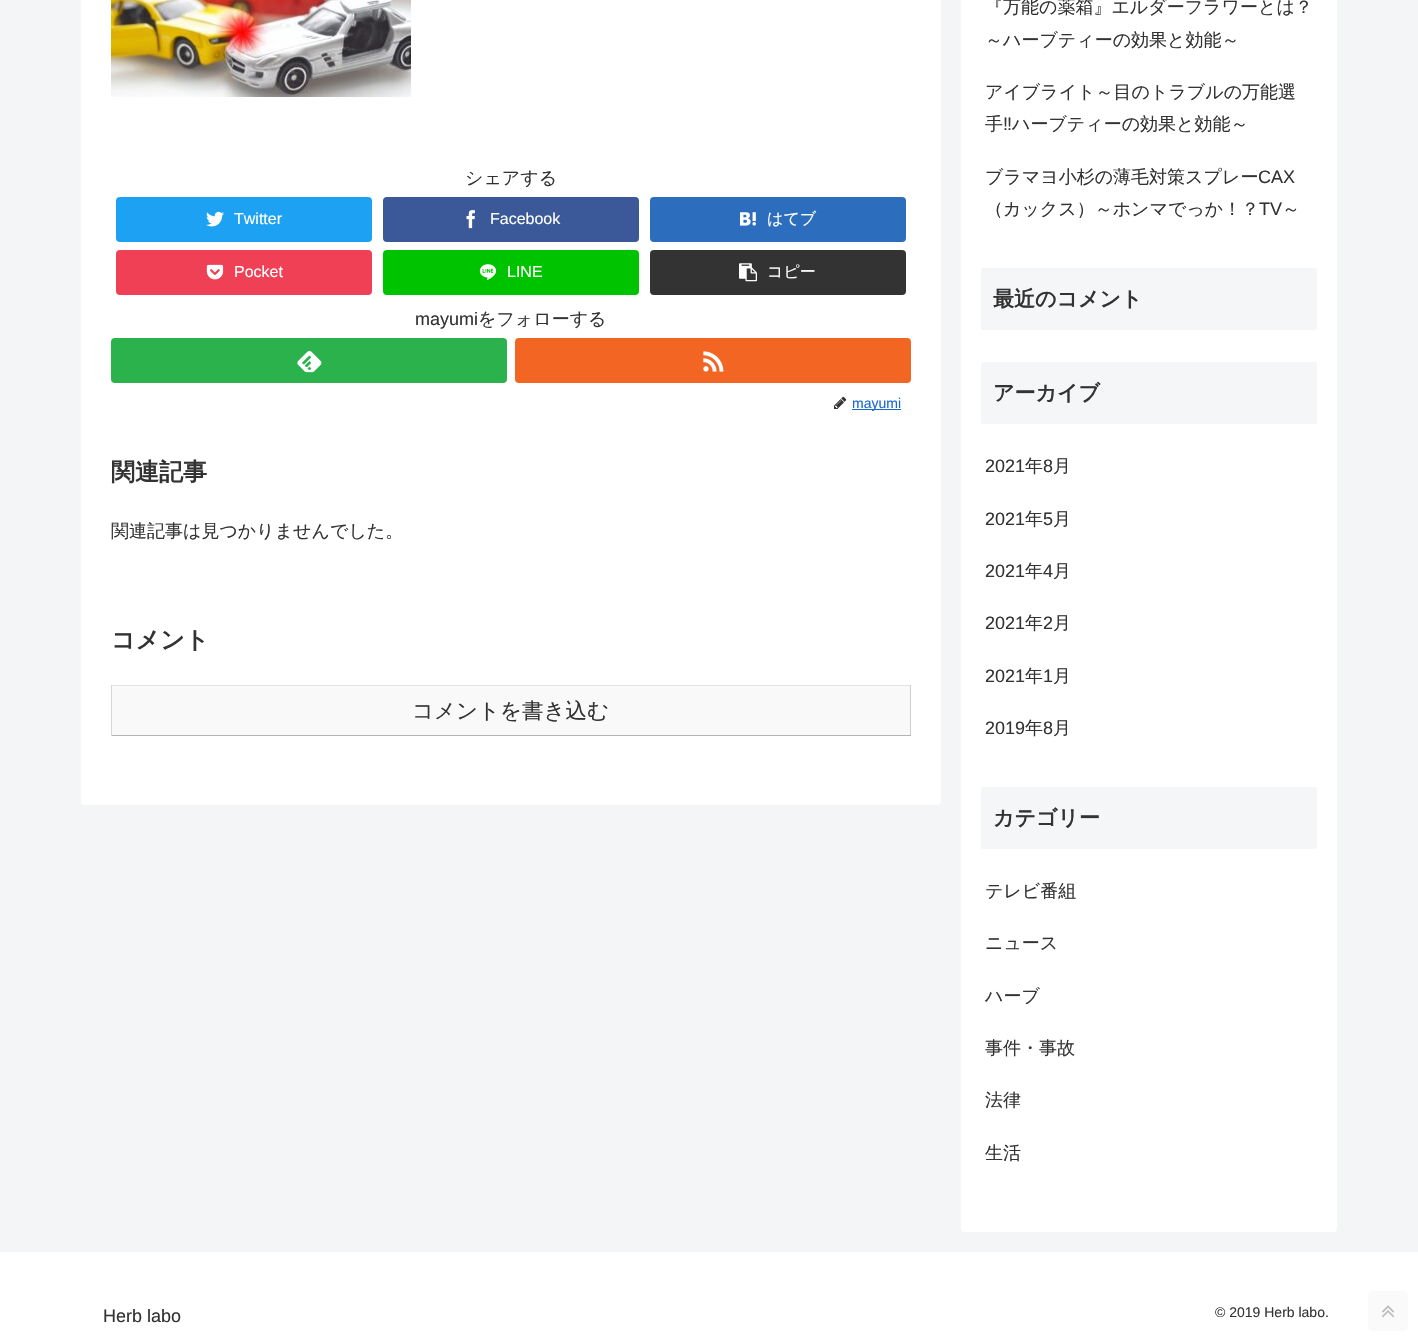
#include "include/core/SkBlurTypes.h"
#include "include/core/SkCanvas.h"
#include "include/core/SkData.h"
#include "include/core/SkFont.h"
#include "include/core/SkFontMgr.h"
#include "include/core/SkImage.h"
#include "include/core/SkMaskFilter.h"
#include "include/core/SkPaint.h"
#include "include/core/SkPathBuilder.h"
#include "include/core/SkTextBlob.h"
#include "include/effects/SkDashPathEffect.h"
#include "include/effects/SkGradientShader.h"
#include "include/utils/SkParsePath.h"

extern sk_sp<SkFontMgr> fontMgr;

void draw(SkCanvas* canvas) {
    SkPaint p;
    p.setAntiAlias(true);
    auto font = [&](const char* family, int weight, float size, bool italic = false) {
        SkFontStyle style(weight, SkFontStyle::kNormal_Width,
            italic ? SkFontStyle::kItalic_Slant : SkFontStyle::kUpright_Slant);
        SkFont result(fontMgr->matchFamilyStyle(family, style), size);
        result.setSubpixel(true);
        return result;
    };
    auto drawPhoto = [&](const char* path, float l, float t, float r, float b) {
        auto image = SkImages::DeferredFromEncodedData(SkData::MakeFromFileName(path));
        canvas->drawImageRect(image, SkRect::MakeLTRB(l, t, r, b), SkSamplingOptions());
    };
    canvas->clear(0xFFF4F5F7);
    p.setColor(0xFFFFFFFF);
    canvas->drawRoundRect(SkRect::MakeLTRB(81, -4, 941, 805), 4, 4, p);
    drawPhoto("media/1.png", 111, 0, 411, 97);
    auto font1 = font("WenQuanYi Zen Hei", 500, 18);
    p.setColor(0xFF333333);
    canvas->drawString("シェアする", 465, 184, font1, p);
    p.setColor(0xFF1DA1F2);
    canvas->drawRoundRect(SkRect::MakeLTRB(116, 197, 372, 242), 4, 4, p);
    drawPhoto("media/2.png", 206, 211, 224, 227);
    auto font2 = font("Liberation Sans", 400, 16);
    p.setColor(0xFFFFFFFF);
    canvas->drawString("Twitter", 234, 224, font2, p);
    p.setColor(0xFF3B5998);
    canvas->drawRoundRect(SkRect::MakeLTRB(383, 197, 639, 242), 4, 4, p);
    drawPhoto("media/3.png", 466, 210, 475, 229);
    p.setColor(0xFFFFFFFF);
    canvas->drawString("Facebook", 490, 224, font2, p);
    p.setColor(0xFF2C6EBD);
    canvas->drawRoundRect(SkRect::MakeLTRB(650, 197, 906, 242), 4, 4, p);
    drawPhoto("media/4.png", 740, 212, 756, 226);
    auto font3 = font("WenQuanYi Zen Hei", 500, 16);
    p.setColor(0xFFFFFFFF);
    canvas->drawString("はてブ", 767, 224, font3, p);
    p.setColor(0xFFEF4056);
    canvas->drawRoundRect(SkRect::MakeLTRB(116, 250, 372, 295), 4, 4, p);
    drawPhoto("media/5.png", 206, 264, 224, 280);
    p.setColor(0xFFFFFFFF);
    canvas->drawString("Pocket", 234, 277, font2, p);
    p.setColor(0xFF00C300);
    canvas->drawRoundRect(SkRect::MakeLTRB(383, 250, 639, 295), 4, 4, p);
    drawPhoto("media/6.png", 479, 264, 497, 280);
    p.setColor(0xFFFFFFFF);
    canvas->drawString("LINE", 507, 277, font2, p);
    p.setColor(0xFF333333);
    canvas->drawRoundRect(SkRect::MakeLTRB(650, 250, 906, 295), 4, 4, p);
    drawPhoto("media/7.png", 739, 263, 757, 282);
    p.setColor(0xFFFFFFFF);
    canvas->drawString("コピー", 767, 277, font3, p);
    auto font4 = font("Liberation Sans", 400, 18);
    p.setColor(0xFF333333);
    canvas->drawString("mayumi", 415, 325, font4, p);
    canvas->drawString("をフォローする", 478, 325, font1, p);
    p.setColor(0xFF2BB24C);
    canvas->drawRoundRect(SkRect::MakeLTRB(111, 338, 507, 383), 4, 4, p);
    drawPhoto("media/8.png", 297, 350, 322, 373);
    p.setColor(0xFFF26522);
    canvas->drawRoundRect(SkRect::MakeLTRB(515, 338, 911, 383), 4, 4, p);
    drawPhoto("media/9.png", 703, 351, 724, 372);
    drawPhoto("media/10.png", 834, 396, 847, 409);
    p.setColor(0xFF1967D2);
    canvas->drawRect(SkRect::MakeLTRB(852, 409, 901, 410), p);
    auto font5 = font("Liberation Sans", 400, 14);
    canvas->drawString("mayumi", 852, 408, font5, p);
    auto font6 = font("WenQuanYi Zen Hei", 700, 24);
    p.setColor(0xFF333333);
    canvas->drawString("関連記事", 111, 480, font6, p);
    canvas->drawString("関連記事は見つかりませんでした。", 111, 537, font1, p);
    canvas->drawString("コメント", 111, 648, font6, p);
    {
        const struct { float l, t, r, b; SkColor color; } items[] = {
            {112, 686, 910, 735, 0xFFF9F9F9},
            {111, 685, 911, 686, 0xFFE3E3E3},
            {910, 685, 911, 736, 0xFFCECECE},
            {111, 735, 911, 736, 0xFFB4B4B4},
            {111, 685, 112, 736, 0xFFD6D6D6},
        };
        for (auto [l, t, r, b, color] : items) {
            p.setColor(color);
            canvas->drawRect(SkRect::MakeLTRB(l, t, r, b), p);
        }
    }
    auto font7 = font("WenQuanYi Zen Hei", 500, 21.5f);
    p.setColor(0xFF333333);
    canvas->drawString("コメントを書き込む", 412, 718, font7, p);
    p.setColor(0xFFFFFFFF);
    canvas->drawRoundRect(SkRect::MakeLTRB(961, -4, 1337, 1232), 4, 4, p);
    p.setColor(0xFF333333);
    {
        const struct { const char* s; float x, y; } items[] = {
            {"『万能の薬箱』エルダーフラワーとは？", 985, 13},
            {"～ハーブティーの効果と効能～", 985, 46},
            {"アイブライト～目のトラブルの万能選", 985, 98},
            {"手", 985, 130},
        };
        for (auto [s, x, y] : items) {
            canvas->drawString(s, x, y, font1, p);
        }
    }
    canvas->drawString("‼", 1003, 130, font4, p);
    canvas->drawString("ハーブティーの効果と効能～", 1012, 130, font1, p);
    canvas->drawString("ブラマヨ小杉の薄毛対策スプレー", 985, 183, font1, p);
    canvas->drawString("CAX", 1258, 183, font4, p);
    canvas->drawString("（カックス）～ホンマでっか！？", 985, 215, font1, p);
    canvas->drawString("TV", 1259, 215, font4, p);
    canvas->drawString("～", 1282, 215, font1, p);
    p.setColor(0xFFF5F6F7);
    canvas->drawRoundRect(SkRect::MakeLTRB(981, 268, 1317, 330), 2, 2, p);
    auto font8 = font("WenQuanYi Zen Hei", 700, 21);
    p.setColor(0xFF333333);
    canvas->drawString("最近のコメント", 993, 306, font8, p);
    p.setColor(0xFFF5F6F7);
    canvas->drawRoundRect(SkRect::MakeLTRB(981, 362, 1317, 424), 2, 2, p);
    p.setColor(0xFF333333);
    canvas->drawString("アーカイブ", 993, 400, font8, p);
    canvas->drawString("2021", 985, 472, font4, p);
    canvas->drawString("年", 1025, 472, font1, p);
    canvas->drawString("8", 1043, 472, font4, p);
    canvas->drawString("月", 1053, 472, font1, p);
    canvas->drawString("2021", 985, 525, font4, p);
    canvas->drawString("年", 1025, 525, font1, p);
    canvas->drawString("5", 1043, 525, font4, p);
    canvas->drawString("月", 1053, 525, font1, p);
    canvas->drawString("2021", 985, 577, font4, p);
    canvas->drawString("年", 1025, 577, font1, p);
    canvas->drawString("4", 1043, 577, font4, p);
    canvas->drawString("月", 1053, 577, font1, p);
    canvas->drawString("2021", 985, 629, font4, p);
    canvas->drawString("年", 1025, 629, font1, p);
    canvas->drawString("2", 1043, 629, font4, p);
    canvas->drawString("月", 1053, 629, font1, p);
    canvas->drawString("2021", 985, 682, font4, p);
    canvas->drawString("年", 1025, 682, font1, p);
    canvas->drawString("1", 1043, 682, font4, p);
    canvas->drawString("月", 1053, 682, font1, p);
    canvas->drawString("2019", 985, 734, font4, p);
    canvas->drawString("年", 1025, 734, font1, p);
    canvas->drawString("8", 1043, 734, font4, p);
    canvas->drawString("月", 1053, 734, font1, p);
    p.setColor(0xFFF5F6F7);
    canvas->drawRoundRect(SkRect::MakeLTRB(981, 787, 1317, 849), 2, 2, p);
    p.setColor(0xFF333333);
    canvas->drawString("カテゴリー", 993, 825, font8, p);
    {
        const struct { const char* s; float x, y; } items[] = {
            {"テレビ番組", 985, 897},
            {"ニュース", 985, 949},
            {"ハーブ", 985, 1002},
            {"事件・事故", 985, 1054},
            {"法律", 985, 1106},
            {"生活", 985, 1159},
        };
        for (auto [s, x, y] : items) {
            canvas->drawString(s, x, y, font1, p);
        }
    }
    p.setColor(0xFFFFFFFF);
    canvas->drawRect(SkRect::MakeLTRB(0, 1252, 1418, 1341), p);
    p.setColor(0xFF333333);
    canvas->drawString("Herb labo", 103, 1322, font4, p);
    canvas->drawString("© 2019 Herb labo.", 1215, 1317, font5, p);
    p.setColor(0xFFFAFAFA);
    canvas->drawRoundRect(SkRect::MakeLTRB(1368, 1291, 1408, 1331), 5, 5, p);
    drawPhoto("media/11.png", 1382, 1305, 1395, 1318);
}
